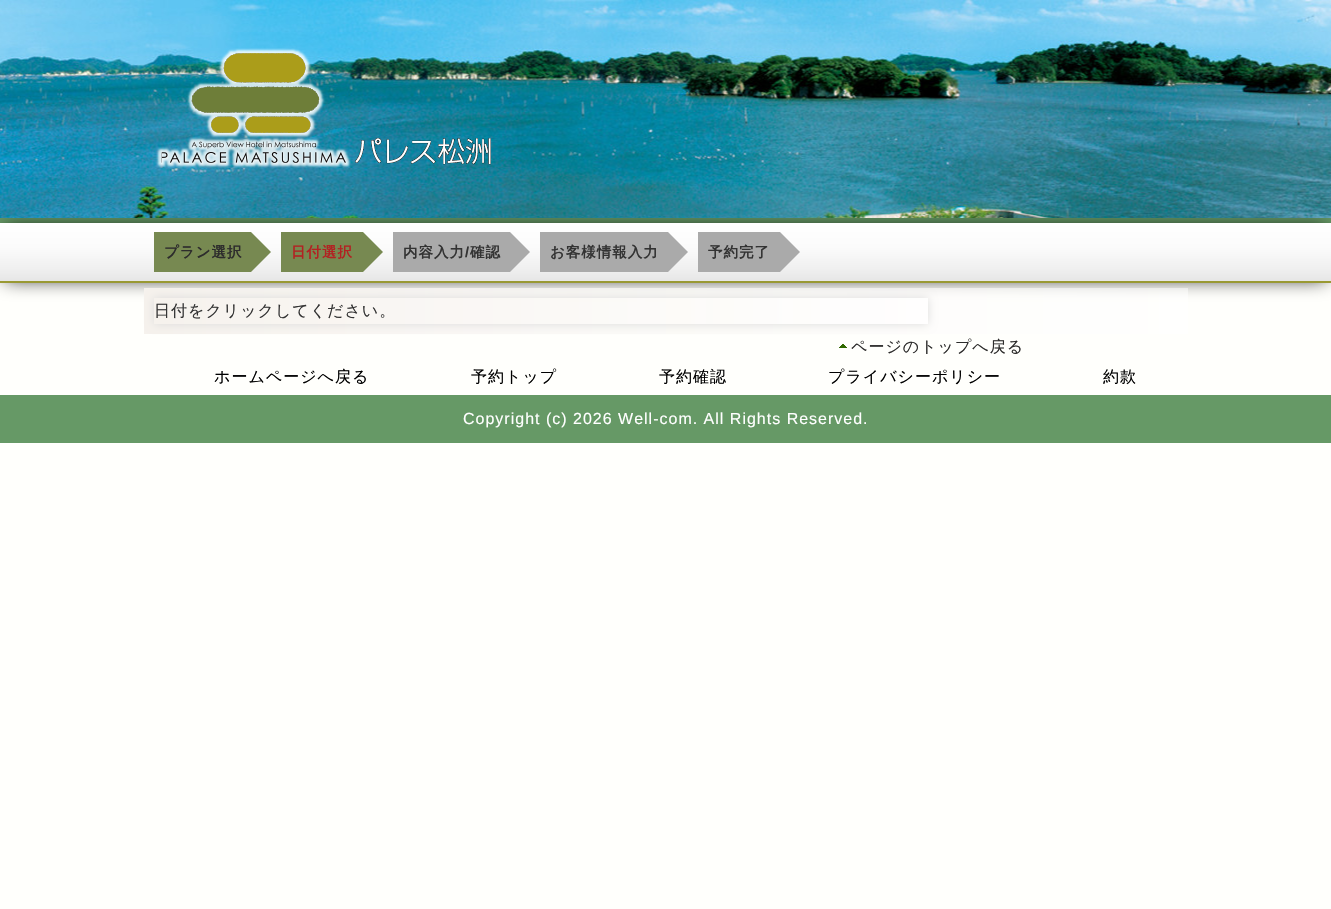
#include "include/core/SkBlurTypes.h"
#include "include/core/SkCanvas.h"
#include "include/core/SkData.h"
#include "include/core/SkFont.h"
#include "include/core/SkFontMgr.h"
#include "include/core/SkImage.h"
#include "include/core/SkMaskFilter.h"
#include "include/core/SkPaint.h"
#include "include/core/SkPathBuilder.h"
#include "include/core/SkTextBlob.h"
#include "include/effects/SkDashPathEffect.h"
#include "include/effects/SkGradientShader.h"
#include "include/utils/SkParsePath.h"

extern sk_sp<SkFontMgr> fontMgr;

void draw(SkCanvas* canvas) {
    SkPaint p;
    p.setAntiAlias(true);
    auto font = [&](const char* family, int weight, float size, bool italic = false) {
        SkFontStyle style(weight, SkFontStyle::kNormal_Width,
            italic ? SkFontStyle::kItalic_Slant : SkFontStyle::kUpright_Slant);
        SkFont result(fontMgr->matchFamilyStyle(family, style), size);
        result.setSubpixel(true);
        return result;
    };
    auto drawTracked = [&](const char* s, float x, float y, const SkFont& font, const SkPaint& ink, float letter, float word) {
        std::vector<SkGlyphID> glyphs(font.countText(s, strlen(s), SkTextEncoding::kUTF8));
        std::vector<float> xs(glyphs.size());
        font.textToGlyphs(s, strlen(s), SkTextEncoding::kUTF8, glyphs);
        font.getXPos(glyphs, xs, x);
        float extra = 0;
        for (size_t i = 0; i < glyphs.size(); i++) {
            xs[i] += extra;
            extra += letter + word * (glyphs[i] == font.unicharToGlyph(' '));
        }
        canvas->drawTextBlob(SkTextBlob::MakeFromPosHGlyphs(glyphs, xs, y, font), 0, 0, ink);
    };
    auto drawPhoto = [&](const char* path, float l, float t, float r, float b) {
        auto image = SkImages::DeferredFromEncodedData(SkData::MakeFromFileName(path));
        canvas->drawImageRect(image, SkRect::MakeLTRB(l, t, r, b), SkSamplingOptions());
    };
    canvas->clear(0xFFFFFFFC);
    p.setColor(0xFF669966);
    canvas->drawRect(SkRect::MakeLTRB(0, 218, 1331, 223), p);
    p.setColor(0xFF000000);
    p.setMaskFilter(SkMaskFilter::MakeBlur(kNormal_SkBlurStyle, 10));
    canvas->drawRect(SkRect::MakeLTRB(5, 228, 1326, 278), p);
    p.setMaskFilter(nullptr);
    drawPhoto("media/1.png", 0, 0, 1331, 218);
    drawPhoto("media/2.png", 156, 48, 491, 168);
    {
        const SkColor colors[] = {0xFFFFFFFF, 0xFFFBFBFB, 0xFFF0F0F0, 0xFFE6E6E6};
        const float stops[] = {0, 0.41f, 0.78f, 1};
        const SkPoint ends[] = {{666, 223}, {666, 281}};
        p.setShader(SkGradientShader::MakeLinear(ends, colors, stops, 4, SkTileMode::kClamp));
        p.setAlpha(255);
    }
    canvas->drawRect(SkRect::MakeLTRB(0, 223, 1331, 281), p);
    p.setShader(nullptr);
    p.setColor(0xFF999933);
    canvas->drawRect(SkRect::MakeLTRB(0, 281, 1331, 283), p);
    p.setColor(0xFF778951);
    canvas->drawRect(SkRect::MakeLTRB(154, 232, 251, 272), p);
    auto font1 = font("WenQuanYi Zen Hei", 700, 14.5f);
    p.setColor(0xFF2D2C2C);
    drawTracked("プラン選択", 164, 257, font1, p, 1, 0);
    p.setColor(0xFF778951);
    canvas->drawPath(SkPathBuilder().moveTo(251, 272).lineTo(251, 232).lineTo(271, 252).close().detach(), p);
    canvas->drawRect(SkRect::MakeLTRB(281, 232, 363, 272), p);
    p.setColor(0xFFB22222);
    drawTracked("日付選択", 291, 257, font1, p, 1, 0);
    p.setColor(0xFF778951);
    canvas->drawPath(SkPathBuilder().moveTo(363, 272).lineTo(363, 232).lineTo(383, 252).close().detach(), p);
    p.setColor(0xFFAAAAAA);
    canvas->drawRect(SkRect::MakeLTRB(393, 232, 510, 272), p);
    p.setColor(0xFF333333);
    drawTracked("内容入力", 403, 257, font1, p, 1, 0);
    auto font2 = font("Liberation Sans", 700, 14.5f);
    drawTracked("/", 465, 257, font2, p, 1, 0);
    drawTracked("確認", 470, 257, font1, p, 1, 0);
    p.setColor(0xFFAAAAAA);
    canvas->drawPath(SkPathBuilder().moveTo(510, 272).lineTo(510, 232).lineTo(530, 252).close().detach(), p);
    canvas->drawRect(SkRect::MakeLTRB(540, 232, 668, 272), p);
    p.setColor(0xFF333333);
    drawTracked("お客様情報入力", 550, 257, font1, p, 1, 0);
    p.setColor(0xFFAAAAAA);
    canvas->drawPath(SkPathBuilder().moveTo(668, 272).lineTo(668, 232).lineTo(688, 252).close().detach(), p);
    canvas->drawRect(SkRect::MakeLTRB(698, 232, 780, 272), p);
    p.setColor(0xFF333333);
    drawTracked("予約完了", 708, 257, font1, p, 1, 0);
    p.setColor(0xFFAAAAAA);
    canvas->drawPath(SkPathBuilder().moveTo(780, 272).lineTo(780, 232).lineTo(800, 252).close().detach(), p);
    {
        const SkColor colors[] = {0x80FFFFFF, 0xFFF6F2ED};
        const float stops[] = {0, 1};
        const SkPoint ends[] = {{1188, 311}, {144, 311}};
        p.setShader(SkGradientShader::MakeLinear(ends, colors, stops, 2, SkTileMode::kClamp));
        p.setAlpha(255);
    }
    canvas->drawRect(SkRect::MakeLTRB(144, 288, 1188, 334), p);
    canvas->save();
    canvas->clipPath(SkPathBuilder(SkPathFillType::kEvenOdd).moveTo(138, 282).lineTo(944, 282).lineTo(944, 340).lineTo(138, 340).close().moveTo(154, 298).lineTo(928, 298).lineTo(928, 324).lineTo(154, 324).close().detach(), true);
    p.setShader(nullptr);
    p.setColor(0xFFDCDCDC);
    p.setMaskFilter(SkMaskFilter::MakeBlur(kNormal_SkBlurStyle, 5));
    canvas->drawRect(SkRect::MakeLTRB(154, 298, 928, 324), p);
    p.setMaskFilter(nullptr);
    canvas->restore();
    {
        const SkColor colors[] = {0xA6FFFFFF, 0xFFF6F2ED};
        const float stops[] = {0, 1};
        const SkPoint ends[] = {{928, 311}, {154, 311}};
        p.setShader(SkGradientShader::MakeLinear(ends, colors, stops, 2, SkTileMode::kClamp));
        p.setAlpha(255);
    }
    canvas->drawRect(SkRect::MakeLTRB(609, 298, 928, 324), p);
    auto font3 = font("WenQuanYi Zen Hei", 500, 16);
    p.setShader(nullptr);
    p.setColor(0xFF333333);
    drawTracked("日付をクリックしてください。", 154, 316, font3, p, 1, 0);
    drawPhoto("media/3.png", 839, 344, 847, 348);
    p.setColor(0xFF2D2C2C);
    drawTracked("ページのトップへ戻る", 851, 352, font3, p, 1, 0);
    p.setColor(0xFF000000);
    {
        const struct { const char* s; float x, y; } items[] = {
            {"ホームページへ戻る", 214, 382},
            {"予約トップ", 471, 382},
            {"予約確認", 659, 382},
            {"プライバシーポリシー", 828, 382},
            {"約款", 1103, 382},
        };
        for (auto [s, x, y] : items) {
            drawTracked(s, x, y, font3, p, 1, 0);
        }
    }
    p.setColor(0xFF669966);
    canvas->drawRect(SkRect::MakeLTRB(0, 395, 1331, 443), p);
    auto font4 = font("Liberation Sans", 400, 16);
    p.setColor(0xFFFFFFFF);
    drawTracked("Copyright (c) 2026 Well-com. All Rights Reserved.", 463, 424, font4, p, 1, 0);
}
